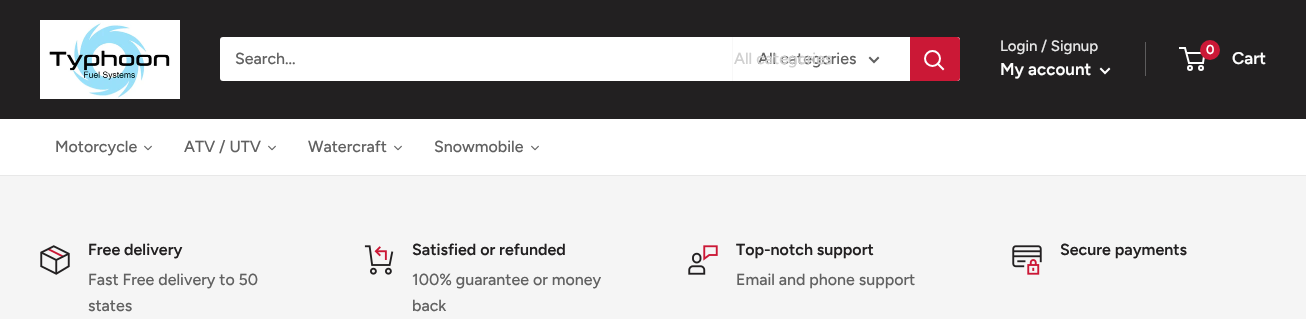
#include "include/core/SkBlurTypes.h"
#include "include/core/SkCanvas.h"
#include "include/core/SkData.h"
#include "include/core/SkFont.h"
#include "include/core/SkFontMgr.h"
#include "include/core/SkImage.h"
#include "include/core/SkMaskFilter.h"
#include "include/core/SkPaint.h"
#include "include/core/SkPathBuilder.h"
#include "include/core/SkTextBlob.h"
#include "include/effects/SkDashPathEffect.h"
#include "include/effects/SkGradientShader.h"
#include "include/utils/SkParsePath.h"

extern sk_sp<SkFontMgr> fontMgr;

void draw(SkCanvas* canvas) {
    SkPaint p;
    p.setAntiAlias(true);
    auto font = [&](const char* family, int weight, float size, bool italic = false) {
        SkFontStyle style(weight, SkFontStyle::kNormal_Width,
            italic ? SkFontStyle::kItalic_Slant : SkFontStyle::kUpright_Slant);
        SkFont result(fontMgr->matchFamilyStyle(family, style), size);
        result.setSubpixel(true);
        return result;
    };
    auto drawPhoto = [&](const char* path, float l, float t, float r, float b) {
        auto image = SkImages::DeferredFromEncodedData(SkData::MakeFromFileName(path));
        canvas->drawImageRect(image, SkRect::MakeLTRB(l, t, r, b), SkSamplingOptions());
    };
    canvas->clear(0xFFF5F5F5);
    p.setColor(0xFF222021);
    canvas->drawRect(SkRect::MakeLTRB(0, 0, 1306, 119), p);
    drawPhoto("media/1.png", 40, 20, 180, 99);
    p.setColor(0xFFFFFFFF);
    canvas->drawRoundRect(SkRect::MakeLTRB(220, 37, 960, 81), 3, 3, p);
    auto font1 = font("Figtree", 500, 16);
    p.setColor(0xFF616161);
    canvas->drawString("Search...", 235, 64, font1, p);
    p.setColor(0xFFF8F8F8);
    canvas->drawRect(SkRect::MakeLTRB(732, 37, 733, 81), p);
    p.setColor(0xFF616161);
    canvas->drawString("All categories", 758, 64, font1, p);
    p.setColor(0xFFD0D0D0);
    canvas->drawString("All categories", 734, 64, font1, p);
    p.setStyle(SkPaint::kStroke_Style);
    p.setStrokeWidth(2);
    p.setStrokeCap(SkPaint::kSquare_Cap);
    p.setColor(0xFF616161);
    canvas->drawPath(SkPathBuilder().moveTo(878, 58).lineTo(874, 62).lineTo(870, 58).detach(), p);
    p.setStyle(SkPaint::kFill_Style);
    p.setColor(0xFFCB1836);
    canvas->drawPath(SkPathBuilder().moveTo(910, 37).lineTo(957, 37).cubicTo(958.5f, 37, 960, 38.5f, 960, 40).lineTo(960, 78).cubicTo(960, 79.5f, 958.5f, 81, 957, 81).lineTo(910, 81).close().detach(), p);
    p.setStyle(SkPaint::kStroke_Style);
    p.setColor(0xFFFFFFFF);
    canvas->drawPath(SkPathBuilder().moveTo(943, 69).lineTo(938, 64).detach(), p);
    p.setStrokeCap(SkPaint::kButt_Cap);
    canvas->drawCircle(932.5f, 58.5f, 7.5f, p);
    auto font2 = font("Figtree", 500, 15);
    p.setStyle(SkPaint::kFill_Style);
    p.setColor(0xFFE8E8E8);
    canvas->drawString("Login / Signup", 1000, 51, font2, p);
    p.setColor(0xFF5D5C5D);
    canvas->drawRect(SkRect::MakeLTRB(1145, 42, 1146, 76), p);
    auto font3 = font("Figtree", 600, 17);
    p.setColor(0xFFFFFFFF);
    canvas->drawString("My account", 1000, 75, font3, p);
    p.setStyle(SkPaint::kStroke_Style);
    p.setStrokeCap(SkPaint::kSquare_Cap);
    canvas->drawPath(SkPathBuilder().moveTo(1109, 69).lineTo(1105, 73).lineTo(1101, 69).detach(), p);
    p.setStrokeCap(SkPaint::kButt_Cap);
    canvas->drawCircle(1190, 68, 2, p);
    canvas->drawCircle(1201, 68, 2, p);
    canvas->drawPath(SkPathBuilder().moveTo(1186.5f, 53).lineTo(1204.5f, 53).lineTo(1203, 63).lineTo(1189, 63).lineTo(1185, 48).lineTo(1179, 48).detach(), p);
    p.setStyle(SkPaint::kFill_Style);
    p.setColor(0xFFCB1836);
    canvas->drawCircle(1210, 50, 10, p);
    auto font4 = font("Figtree", 600, 13);
    p.setColor(0xFFFFFFFF);
    canvas->drawString("0", 1206, 54, font4, p);
    canvas->drawString("Cart", 1232, 64, font3, p);
    canvas->drawRect(SkRect::MakeLTRB(0, 119, 1306, 175), p);
    p.setColor(0xFFE8E8E8);
    canvas->drawRect(SkRect::MakeLTRB(0, 175, 1306, 176), p);
    p.setColor(0xFF616161);
    canvas->drawString("Motorcycle", 55, 152, font1, p);
    drawPhoto("media/2.png", 144, 145, 152, 151);
    canvas->drawString("ATV / UTV", 184, 152, font1, p);
    drawPhoto("media/2.png", 268, 145, 276, 151);
    canvas->drawString("Watercraft", 308, 152, font1, p);
    drawPhoto("media/2.png", 394, 145, 402, 151);
    canvas->drawString("Snowmobile", 434, 152, font1, p);
    drawPhoto("media/2.png", 531, 145, 539, 151);
    drawPhoto("media/3.png", 40, 245, 70, 275);
    auto font5 = font("Figtree", 600, 16);
    p.setColor(0xFF222021);
    canvas->drawString("Free delivery", 88, 255, font5, p);
    p.setColor(0xFF616161);
    canvas->drawString("Fast Free delivery to 50", 88, 285, font1, p);
    canvas->drawString("states", 88, 311, font1, p);
    drawPhoto("media/4.png", 364, 245, 394, 275);
    p.setColor(0xFF222021);
    canvas->drawString("Satisfied or refunded", 412, 255, font5, p);
    p.setColor(0xFF616161);
    canvas->drawString("100% guarantee or money", 412, 285, font1, p);
    canvas->drawString("back", 412, 311, font1, p);
    drawPhoto("media/5.png", 688, 245, 718, 275);
    p.setColor(0xFF222021);
    canvas->drawString("Top-notch support", 736, 255, font5, p);
    p.setColor(0xFF616161);
    canvas->drawString("Email and phone support", 736, 285, font1, p);
    drawPhoto("media/6.png", 1012, 245, 1042, 275);
    p.setColor(0xFF222021);
    canvas->drawString("Secure payments", 1060, 255, font5, p);
}
